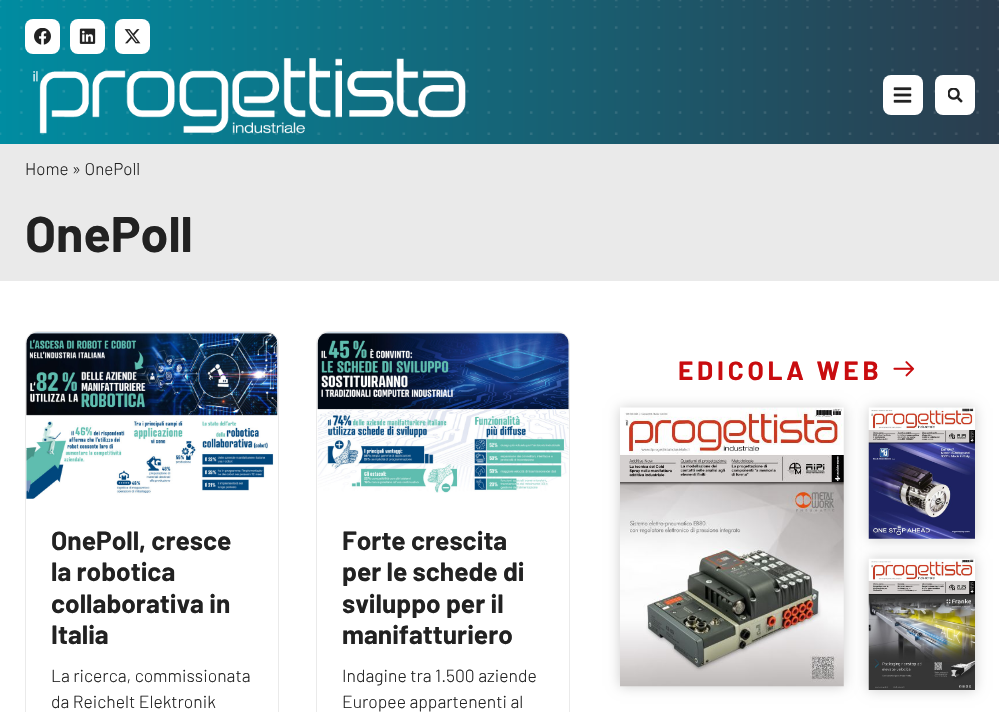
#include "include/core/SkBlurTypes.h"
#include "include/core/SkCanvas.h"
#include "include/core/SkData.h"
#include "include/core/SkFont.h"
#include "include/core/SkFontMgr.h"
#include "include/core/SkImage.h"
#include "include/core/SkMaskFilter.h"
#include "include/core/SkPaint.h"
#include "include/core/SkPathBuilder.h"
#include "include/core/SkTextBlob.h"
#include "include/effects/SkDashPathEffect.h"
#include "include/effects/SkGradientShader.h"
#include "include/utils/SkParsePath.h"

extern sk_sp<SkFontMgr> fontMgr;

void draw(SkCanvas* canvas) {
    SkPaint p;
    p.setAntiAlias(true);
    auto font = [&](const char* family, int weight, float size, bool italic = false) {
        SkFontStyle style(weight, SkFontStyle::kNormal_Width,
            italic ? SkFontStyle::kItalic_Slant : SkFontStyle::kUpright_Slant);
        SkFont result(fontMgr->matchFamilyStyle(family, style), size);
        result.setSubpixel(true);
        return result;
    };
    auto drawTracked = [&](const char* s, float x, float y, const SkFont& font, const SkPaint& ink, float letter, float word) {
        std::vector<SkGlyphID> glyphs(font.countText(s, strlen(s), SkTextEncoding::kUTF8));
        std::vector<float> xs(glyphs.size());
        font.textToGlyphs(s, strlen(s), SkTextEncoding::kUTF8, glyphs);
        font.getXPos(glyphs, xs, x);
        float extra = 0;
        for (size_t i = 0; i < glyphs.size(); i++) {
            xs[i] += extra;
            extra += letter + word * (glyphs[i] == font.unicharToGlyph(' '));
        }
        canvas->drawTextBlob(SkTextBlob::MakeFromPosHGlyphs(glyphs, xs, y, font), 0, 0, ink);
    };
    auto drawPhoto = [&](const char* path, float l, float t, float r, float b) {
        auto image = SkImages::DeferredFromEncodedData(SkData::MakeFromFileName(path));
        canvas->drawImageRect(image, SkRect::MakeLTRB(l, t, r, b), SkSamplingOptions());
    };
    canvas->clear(0xFFFFFFFF);
    {
        const SkColor colors[] = {0xFF008CA1, 0xFF2B3D4E};
        const float stops[] = {0, 1};
        const SkPoint ends[] = {{0, 33}, {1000, 33}};
        p.setShader(SkGradientShader::MakeLinear(ends, colors, stops, 2, SkTileMode::kClamp));
        p.setAlpha(255);
    }
    canvas->drawRect(SkRect::MakeLTRB(0, 0, 999, 6), p);
    drawPhoto("media/1.png", 0, 0, 999, 2);
    {
        const SkColor colors[] = {0xFF008CA1, 0xFF2B3D4E};
        const float stops[] = {0, 1};
        const SkPoint ends[] = {{0, 75}, {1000, 75}};
        p.setShader(SkGradientShader::MakeLinear(ends, colors, stops, 2, SkTileMode::kClamp));
        p.setAlpha(255);
    }
    canvas->drawRect(SkRect::MakeLTRB(0, 6, 999, 144), p);
    drawPhoto("media/2.png", 0, 6, 999, 135);
    p.setShader(nullptr);
    p.setColor(0xFFFFFFFF);
    canvas->drawRoundRect(SkRect::MakeLTRB(25, 19, 60, 54), 8, 8, p);
    drawPhoto("media/3.png", 34, 28, 51, 45);
    canvas->drawRoundRect(SkRect::MakeLTRB(70, 19, 105, 54), 8, 8, p);
    drawPhoto("media/4.png", 79, 28, 96, 44);
    canvas->drawRoundRect(SkRect::MakeLTRB(115, 19, 150, 54), 8, 8, p);
    drawPhoto("media/5.png", 124, 29, 141, 44);
    drawPhoto("media/6.png", 33, 58, 466, 134);
    canvas->drawRoundRect(SkRect::MakeLTRB(883, 75, 923, 115), 8, 8, p);
    drawPhoto("media/7.png", 893, 87, 912, 103);
    canvas->drawRoundRect(SkRect::MakeLTRB(935, 75, 975, 115), 8, 8, p);
    drawPhoto("media/8.png", 948, 88, 963, 103);
    p.setColor(0xFFEAEAEA);
    canvas->drawRect(SkRect::MakeLTRB(0, 144, 999, 281), p);
    auto font1 = font("Barlow", 300, 17);
    p.setColor(0xFF222222);
    canvas->drawString("Home » OnePoll", 25, 175, font1, p);
    auto font2 = font("Barlow", 700, 50);
    canvas->drawString("OnePoll", 25, 252, font2, p);
    auto font3 = font("Barlow", 700, 26.25f);
    p.setColor(0xFFC90C0F);
    drawTracked("EDICOLA WEB", 678, 380, font3, p, 3.75f, 0);
    drawPhoto("media/9.png", 893, 361, 915, 377);
    p.setColor(0x33000000);
    p.setMaskFilter(SkMaskFilter::MakeBlur(kNormal_SkBlurStyle, 6));
    canvas->drawRect(SkRect::MakeLTRB(620, 408, 844, 686), p);
    p.setMaskFilter(nullptr);
    drawPhoto("media/10.png", 620, 407, 844, 687);
    p.setMaskFilter(SkMaskFilter::MakeBlur(kNormal_SkBlurStyle, 6));
    canvas->drawRect(SkRect::MakeLTRB(869, 408, 975, 539), p);
    p.setMaskFilter(nullptr);
    drawPhoto("media/11.png", 868, 407, 975, 539);
    p.setMaskFilter(SkMaskFilter::MakeBlur(kNormal_SkBlurStyle, 6));
    canvas->drawRect(SkRect::MakeLTRB(869, 559, 975, 690), p);
    p.setMaskFilter(nullptr);
    drawPhoto("media/12.png", 868, 558, 975, 690);
    p.setStyle(SkPaint::kStroke_Style);
    p.setStrokeWidth(1);
    p.setColor(0xFFEAEAEA);
    canvas->drawRoundRect(SkRect::MakeLTRB(25.5f, 331.5f, 278.5f, 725.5f), 12.5f, 12.5f, p);
    drawPhoto("media/13.png", 26, 332, 278, 499);
    p.setStyle(SkPaint::kFill_Style);
    p.setColor(0xFF222222);
    {
        const struct { const char* s; float x, y; } items[] = {
            {"OnePoll, cresce", 51, 550},
            {"la robotica", 51, 581},
            {"collaborativa in", 51, 613},
            {"Italia", 51, 644},
        };
        for (auto [s, x, y] : items) {
            canvas->drawString(s, x, y, font3, p);
        }
    }
    auto font4 = font("Barlow", 300, 17.5f);
    canvas->drawString("La ricerca, commissionata", 51, 682, font4, p);
    canvas->drawString("da Reichelt Elektronik", 51, 708, font4, p);
    p.setStyle(SkPaint::kStroke_Style);
    p.setColor(0xFFEAEAEA);
    canvas->drawRoundRect(SkRect::MakeLTRB(316.5f, 331.5f, 569.5f, 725.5f), 12.5f, 12.5f, p);
    drawPhoto("media/14.png", 317, 332, 569, 493);
    p.setStyle(SkPaint::kFill_Style);
    p.setColor(0xFF222222);
    {
        const struct { const char* s; float x, y; } items[] = {
            {"Forte crescita", 342, 550},
            {"per le schede di", 342, 581},
            {"sviluppo per il", 342, 613},
            {"manifatturiero", 342, 644},
        };
        for (auto [s, x, y] : items) {
            canvas->drawString(s, x, y, font3, p);
        }
    }
    canvas->drawString("Indagine tra 1.500 aziende", 342, 682, font4, p);
    canvas->drawString("Europee appartenenti al", 342, 708, font4, p);
}
